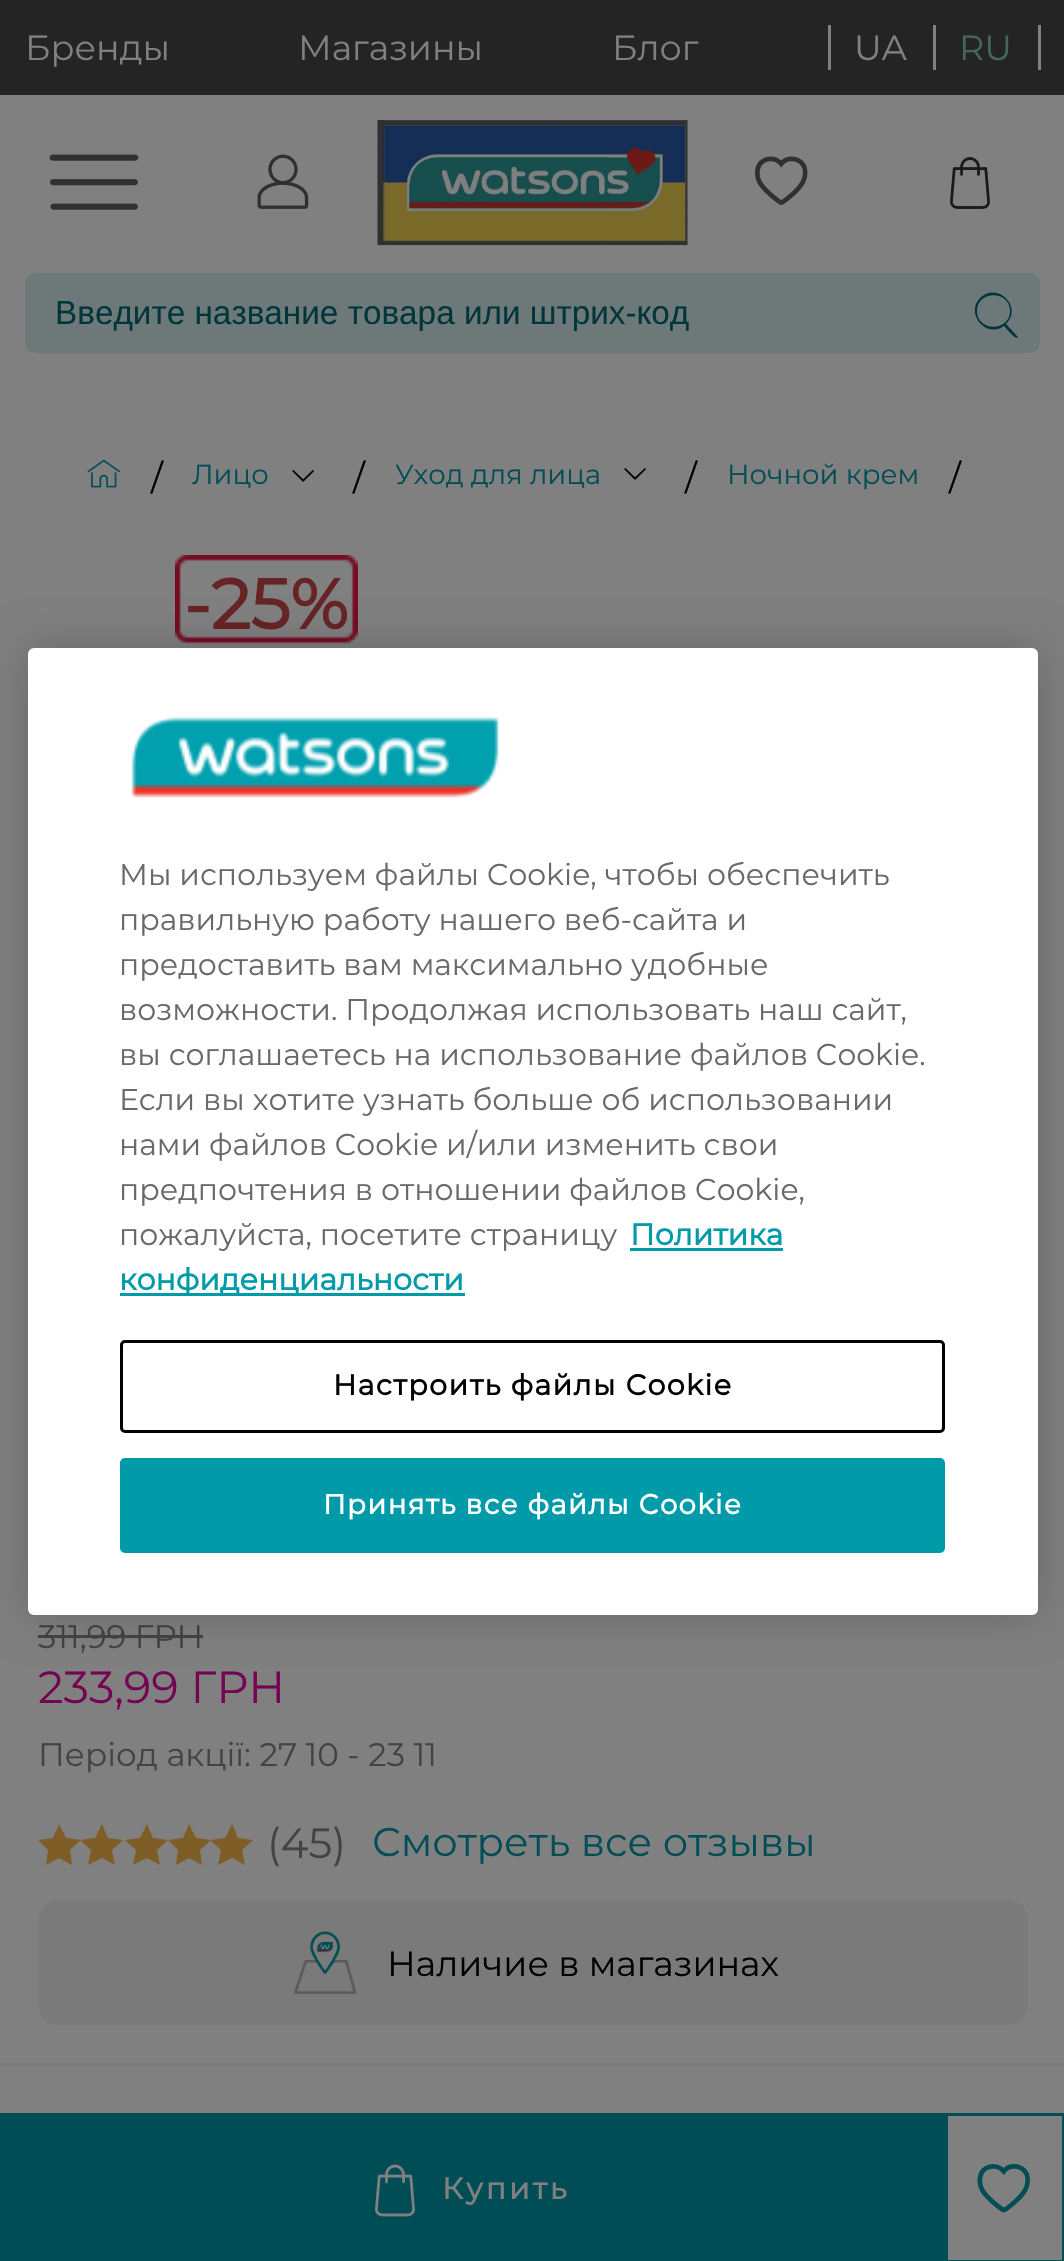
#include "include/core/SkBlurTypes.h"
#include "include/core/SkCanvas.h"
#include "include/core/SkData.h"
#include "include/core/SkFont.h"
#include "include/core/SkFontMgr.h"
#include "include/core/SkImage.h"
#include "include/core/SkMaskFilter.h"
#include "include/core/SkPaint.h"
#include "include/core/SkPathBuilder.h"
#include "include/core/SkTextBlob.h"
#include "include/effects/SkDashPathEffect.h"
#include "include/effects/SkGradientShader.h"
#include "include/utils/SkParsePath.h"

extern sk_sp<SkFontMgr> fontMgr;

void draw(SkCanvas* canvas) {
    SkPaint p;
    p.setAntiAlias(true);
    auto font = [&](const char* family, int weight, float size, bool italic = false) {
        SkFontStyle style(weight, SkFontStyle::kNormal_Width,
            italic ? SkFontStyle::kItalic_Slant : SkFontStyle::kUpright_Slant);
        SkFont result(fontMgr->matchFamilyStyle(family, style), size);
        result.setSubpixel(true);
        return result;
    };
    auto drawTracked = [&](const char* s, float x, float y, const SkFont& font, const SkPaint& ink, float letter, float word) {
        std::vector<SkGlyphID> glyphs(font.countText(s, strlen(s), SkTextEncoding::kUTF8));
        std::vector<float> xs(glyphs.size());
        font.textToGlyphs(s, strlen(s), SkTextEncoding::kUTF8, glyphs);
        font.getXPos(glyphs, xs, x);
        float extra = 0;
        for (size_t i = 0; i < glyphs.size(); i++) {
            xs[i] += extra;
            extra += letter + word * (glyphs[i] == font.unicharToGlyph(' '));
        }
        canvas->drawTextBlob(SkTextBlob::MakeFromPosHGlyphs(glyphs, xs, y, font), 0, 0, ink);
    };
    auto drawPhoto = [&](const char* path, float l, float t, float r, float b) {
        auto image = SkImages::DeferredFromEncodedData(SkData::MakeFromFileName(path));
        canvas->drawImageRect(image, SkRect::MakeLTRB(l, t, r, b), SkSamplingOptions());
    };
    canvas->clear(0xFF808080);
    p.setColor(0xFF242424);
    canvas->drawRect(SkRect::MakeLTRB(0, 0, 1064, 95), p);
    auto font1 = font("Montserrat", 400, 35);
    p.setColor(0xFF808080);
    {
        const struct { const char* s; float x, y; } items[] = {
            {"Бренды", 25, 60},
            {"Магазины", 298, 60},
            {"Блог", 612, 60},
        };
        for (auto [s, x, y] : items) {
            canvas->drawString(s, x, y, font1, p);
        }
    }
    canvas->drawRect(SkRect::MakeLTRB(1038, 25, 1041, 70), p);
    canvas->drawRect(SkRect::MakeLTRB(828, 25, 831, 70), p);
    canvas->drawString("UA", 854, 60, font1, p);
    canvas->drawRect(SkRect::MakeLTRB(933, 25, 936, 70), p);
    p.setColor(0xFF456560);
    canvas->drawString("RU", 959, 60, font1, p);
    drawPhoto("media/1.png", 49, 154, 139, 210);
    drawPhoto("media/2.png", 257, 154, 309, 209);
    drawPhoto("media/3.png", 377, 120, 688, 246);
    drawPhoto("media/4.png", 755, 156, 808, 205);
    drawPhoto("media/5.png", 950, 157, 990, 209);
    p.setColor(0xFF6D7979);
    canvas->drawRoundRect(SkRect::MakeLTRB(25, 273, 1040, 353), 10, 10, p);
    auto font2 = font("Liberation Sans", 400, 33.3f);
    p.setColor(0xFF00363B);
    canvas->drawString("Введите название товара или штрих-код", 55, 324, font2, p);
    canvas->drawPath(SkPathBuilder().moveTo(977, 311).cubicTo(977, 290, 1010, 290, 1010, 311).cubicTo(1010, 332, 977, 332, 977, 311).close().moveTo(1017, 336).lineTo(1006, 324).cubicTo(1023, 308, 999, 282, 981, 297).cubicTo(964, 313, 986, 339, 1004, 326).cubicTo(1006, 328, 1015, 339, 1017, 338).cubicTo(1018, 337, 1018, 336, 1017, 336).close().detach(), p);
    drawPhoto("media/6.png", 87, 459, 120, 488);
    p.setColor(0xFF000000);
    canvas->drawString("/", 151, 490, font1, p);
    auto font3 = font("Montserrat", 400, 27.5f);
    p.setColor(0xFF004D55);
    canvas->drawString("Лицо", 192, 484, font3, p);
    drawPhoto("media/7.png", 292, 470, 314, 482);
    p.setColor(0xFF000000);
    canvas->drawString("/", 353, 490, font1, p);
    p.setColor(0xFF004D55);
    canvas->drawString("Уход для лица", 395, 484, font3, p);
    drawPhoto("media/8.png", 624, 468, 646, 480);
    p.setColor(0xFF000000);
    canvas->drawString("/", 685, 490, font1, p);
    p.setColor(0xFF004D55);
    canvas->drawString("Ночной крем", 727, 484, font3, p);
    p.setColor(0xFF000000);
    canvas->drawString("/", 949, 490, font1, p);
    drawPhoto("media/9.png", 175, 555, 358, 644);
    auto font4 = font("Montserrat", 700, 70);
    p.setColor(0xFF662426);
    canvas->drawString("-25%", 184, 629, font4, p);
    auto font5 = font("Montserrat", 400, 32.5f);
    p.setColor(0xFF434343);
    canvas->drawString("311,99 ГРН", 38, 1648, font5, p);
    canvas->drawRect(SkRect::MakeLTRB(38, 1635, 203, 1638), p);
    auto font6 = font("Montserrat", 400, 45);
    p.setColor(0xFF740452);
    canvas->drawString("233,99 ГРН", 38, 1703, font6, p);
    p.setColor(0xFF434343);
    canvas->drawString("Період акції: 27 10 - 23 11", 38, 1766, font5, p);
    p.setColor(0xFF7E5D27);
    canvas->drawPath(SkPathBuilder().moveTo(81, 1840).lineTo(66, 1838).lineTo(59, 1824).lineTo(53, 1838).lineTo(38, 1840).lineTo(48, 1850).lineTo(46, 1865).lineTo(59, 1858).lineTo(72, 1865).lineTo(70, 1850).close().detach(), p);
    canvas->drawPath(SkPathBuilder().moveTo(123, 1840).lineTo(108, 1838).lineTo(102, 1824).lineTo(95, 1838).lineTo(80, 1840).lineTo(91, 1850).lineTo(88, 1865).lineTo(102, 1858).lineTo(115, 1865).lineTo(112, 1850).close().detach(), p);
    canvas->drawPath(SkPathBuilder().moveTo(168, 1840).lineTo(153, 1838).lineTo(147, 1824).lineTo(140, 1838).lineTo(125, 1840).lineTo(136, 1850).lineTo(133, 1865).lineTo(147, 1858).lineTo(160, 1865).lineTo(157, 1850).close().detach(), p);
    canvas->drawPath(SkPathBuilder().moveTo(211, 1840).lineTo(196, 1838).lineTo(189, 1824).lineTo(183, 1838).lineTo(168, 1840).lineTo(178, 1850).lineTo(176, 1865).lineTo(189, 1858).lineTo(202, 1865).lineTo(200, 1850).close().detach(), p);
    canvas->drawPath(SkPathBuilder().moveTo(253, 1840).lineTo(238, 1838).lineTo(232, 1824).lineTo(225, 1838).lineTo(210, 1840).lineTo(221, 1850).lineTo(218, 1865).lineTo(232, 1858).lineTo(245, 1865).lineTo(242, 1850).close().detach(), p);
    auto font7 = font("Montserrat", 400, 42);
    p.setColor(0xFF434343);
    canvas->drawString("(45)", 267, 1858, font7, p);
    auto font8 = font("Montserrat", 400, 40);
    p.setColor(0xFF004D55);
    canvas->drawString("Смотреть все отзывы", 372, 1856, font8, p);
    p.setColor(0xFF7A7A7A);
    canvas->drawRoundRect(SkRect::MakeLTRB(38, 1900, 1028, 2025), 20, 20, p);
    drawPhoto("media/10.png", 293, 1931, 357, 1994);
    p.setColor(0xFF000000);
    canvas->drawString("Наличие в магазинах", 387, 1976, font1, p);
    p.setColor(0xFF7A7A7A);
    canvas->drawRect(SkRect::MakeLTRB(0, 2063, 1064, 2066), p);
    p.setColor(0xFF004D55);
    canvas->drawRect(SkRect::MakeLTRB(0, 2113, 945, 2261), p);
    drawPhoto("media/11.png", 375, 2164, 415, 2217);
    auto font9 = font("Montserrat", 700, 30);
    p.setColor(0xFF808080);
    drawTracked("Купить", 442, 2199, font9, p, 3, 0);
    drawPhoto("media/12.png", 977, 2164, 1030, 2213);
    p.setStyle(SkPaint::kStroke_Style);
    p.setStrokeWidth(3);
    p.setColor(0xFF004D55);
    canvas->drawRect(SkRect::MakeLTRB(946.5f, 2114.5f, 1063.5f, 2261.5f), p);
    p.setStyle(SkPaint::kFill_Style);
    p.setColor(0x33000000);
    p.setMaskFilter(SkMaskFilter::MakeBlur(kNormal_SkBlurStyle, 22.5f));
    canvas->drawRoundRect(SkRect::MakeLTRB(28, 648, 1038, 1615), 6, 6, p);
    p.setMaskFilter(nullptr);
    p.setColor(0xFFFFFFFF);
    canvas->drawRoundRect(SkRect::MakeLTRB(28, 648, 1038, 1615), 6, 6, p);
    drawPhoto("media/13.png", 131, 717, 500, 798);
    auto font10 = font("Montserrat", 400, 30);
    p.setColor(0xFF696969);
    {
        const struct { const char* s; float x, y; } items[] = {
            {"Мы используем файлы Cookie, чтобы обеспечить", 119, 885},
            {"правильную работу нашего веб-сайта и", 119, 930},
            {"предоставить вам максимально удобные", 119, 975},
            {"возможности. Продолжая использовать наш сайт,", 119, 1020},
            {"вы соглашаетесь на использование файлов Cookie.", 119, 1065},
            {"Если вы хотите узнать больше об использовании", 119, 1110},
            {"нами файлов Cookie и/или изменить свои", 119, 1155},
            {"предпочтения в отношении файлов Cookie,", 119, 1200},
            {"пожалуйста, посетите страницу", 119, 1245},
        };
        for (auto [s, x, y] : items) {
            canvas->drawString(s, x, y, font10, p);
        }
    }
    p.setColor(0xFF009AA9);
    canvas->drawString("Политика", 630, 1245, font9, p);
    canvas->drawRect(SkRect::MakeLTRB(630, 1248, 783, 1251), p);
    canvas->drawRect(SkRect::MakeLTRB(120, 1293, 465, 1296), p);
    canvas->drawString("конфиденциальности", 119, 1290, font9, p);
    p.setStyle(SkPaint::kStroke_Style);
    p.setColor(0xFF000000);
    canvas->drawRoundRect(SkRect::MakeLTRB(121.5f, 1341.5f, 943.5f, 1431.5f), 3.5f, 3.5f, p);
    auto font11 = font("Montserrat", 700, 28.5f);
    p.setStyle(SkPaint::kFill_Style);
    drawTracked("Настроить файлы Cookie", 333, 1395, font11, p, 1.4f, 0);
    p.setColor(0xFF009AA9);
    canvas->drawRoundRect(SkRect::MakeLTRB(121.5f, 1459.5f, 943.5f, 1551.5f), 3.5f, 3.5f, p);
    p.setStyle(SkPaint::kStroke_Style);
    canvas->drawRoundRect(SkRect::MakeLTRB(121.5f, 1459.5f, 943.5f, 1551.5f), 3.5f, 3.5f, p);
    auto font12 = font("Montserrat", 700, 27.5f);
    p.setStyle(SkPaint::kFill_Style);
    p.setColor(0xFFFFFFFF);
    drawTracked("Принять все файлы Cookie", 323, 1514, font12, p, 1.4f, 0);
}
